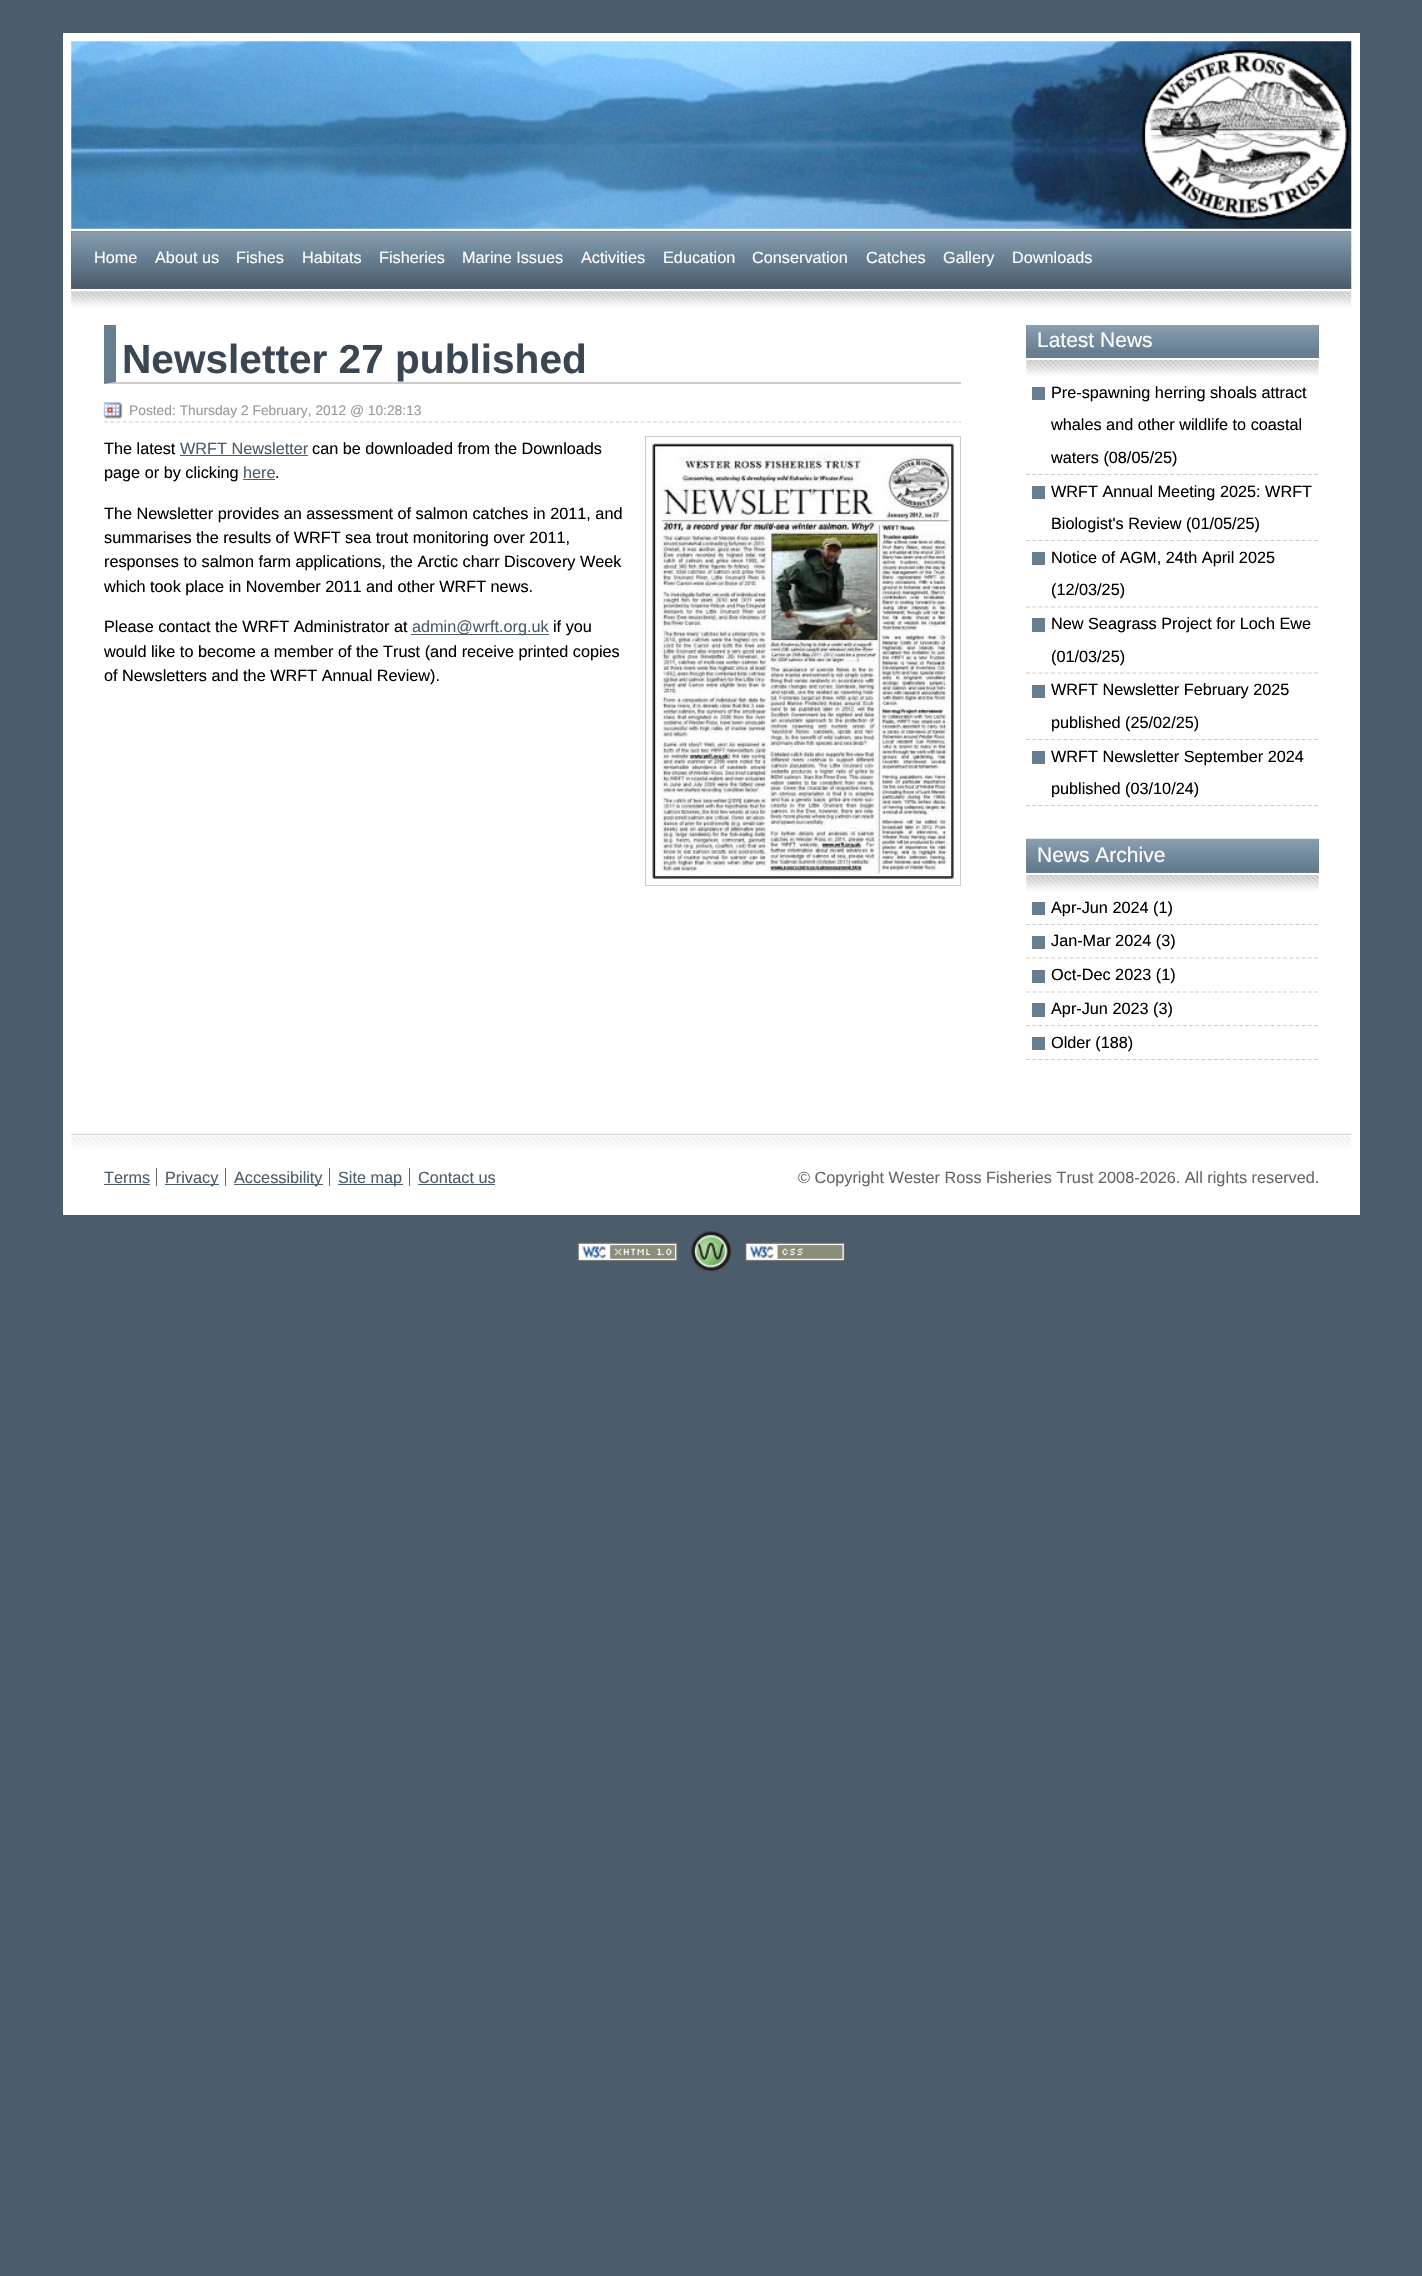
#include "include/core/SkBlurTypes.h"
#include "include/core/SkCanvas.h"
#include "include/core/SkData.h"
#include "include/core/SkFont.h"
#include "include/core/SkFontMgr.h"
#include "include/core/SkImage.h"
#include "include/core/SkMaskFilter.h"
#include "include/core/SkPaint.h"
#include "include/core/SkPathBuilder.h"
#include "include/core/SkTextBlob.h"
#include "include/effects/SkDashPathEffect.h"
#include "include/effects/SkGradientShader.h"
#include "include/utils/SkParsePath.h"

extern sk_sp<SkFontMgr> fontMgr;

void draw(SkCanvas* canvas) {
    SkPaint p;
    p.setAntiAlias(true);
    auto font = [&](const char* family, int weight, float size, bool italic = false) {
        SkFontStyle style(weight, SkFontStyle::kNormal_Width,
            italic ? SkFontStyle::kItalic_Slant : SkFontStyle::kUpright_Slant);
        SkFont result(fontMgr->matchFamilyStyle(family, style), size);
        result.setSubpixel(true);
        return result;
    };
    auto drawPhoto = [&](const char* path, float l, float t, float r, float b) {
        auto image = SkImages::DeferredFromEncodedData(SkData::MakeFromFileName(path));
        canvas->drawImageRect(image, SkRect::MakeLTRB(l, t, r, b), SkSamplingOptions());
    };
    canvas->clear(0xFF4B5C6B);
    p.setColor(0xFFFFFFFF);
    canvas->drawRect(SkRect::MakeLTRB(63, 33, 1360, 1215), p);
    drawPhoto("media/1.png", 71, 41, 1352, 229);
    drawPhoto("media/2.png", 1141, 48, 1350, 221);
    p.setColor(0xFF717171);
    canvas->drawRect(SkRect::MakeLTRB(71, 231, 1351, 289), p);
    drawPhoto("media/3.png", 71, 231, 1352, 289);
    auto font1 = font("Liberation Sans", 400, 16.25f);
    p.setColor(0xFFFFFFFF);
    {
        const struct { const char* s; float x, y; } items[] = {
            {"Home", 94, 263},
            {"About us", 155, 263},
            {"Fishes", 236, 263},
            {"Habitats", 302, 263},
            {"Fisheries", 379, 263},
            {"Marine Issues", 462, 263},
            {"Activities", 581, 263},
            {"Education", 663, 263},
            {"Conservation", 752, 263},
            {"Catches", 866, 263},
            {"Gallery", 943, 263},
            {"Downloads", 1012, 263},
        };
        for (auto [s, x, y] : items) {
            canvas->drawString(s, x, y, font1, p);
        }
    }
    drawPhoto("media/4.png", 71, 291, 1352, 308);
    p.setColor(0xFFCCCCCC);
    canvas->drawPath(SkPathBuilder().moveTo(961, 384).lineTo(104, 384).lineTo(116, 382).lineTo(961, 382).close().detach(), p);
    p.setColor(0xFF677E91);
    canvas->drawPath(SkPathBuilder().moveTo(104, 384).lineTo(104, 325).lineTo(116, 325).lineTo(116, 382).close().detach(), p);
    auto font2 = font("Liberation Sans", 700, 40.6f);
    p.setColor(0xFF3A4752);
    canvas->drawString("Newsletter 27 published", 122, 373, font2, p);
    drawPhoto("media/5.png", 103, 402, 123, 419);
    p.setStyle(SkPaint::kStroke_Style);
    p.setStrokeWidth(1.2f);
    p.setColor(0xFFCCCCCC);
    p.setPathEffect(SkDashPathEffect::Make({{3.75f, 2.49f}}, 0));
    canvas->drawPath(SkPathBuilder().moveTo(104, 422).lineTo(961, 422).detach(), p);
    p.setPathEffect(nullptr);
    auto font3 = font("Liberation Sans", 400, 13.8f);
    p.setStyle(SkPaint::kFill_Style);
    p.setColor(0xFF999999);
    canvas->drawString("Posted: Thursday 2 February, 2012 @ 10:28:13", 129, 415, font3, p);
    p.setColor(0xFF000000);
    canvas->drawString("The latest", 104, 454, font1, p);
    p.setColor(0xFF4B5C6B);
    canvas->drawString("WRFT Newsletter", 180, 454, font1, p);
    canvas->drawRect(SkRect::MakeLTRB(180, 455, 308, 456), p);
    p.setColor(0xFF000000);
    canvas->drawString("can be downloaded from the Downloads", 312, 454, font1, p);
    canvas->drawString("page or by clicking", 104, 478, font1, p);
    p.setColor(0xFF4B5C6B);
    canvas->drawString("here", 243, 478, font1, p);
    canvas->drawRect(SkRect::MakeLTRB(243, 479, 275, 480), p);
    p.setColor(0xFF000000);
    canvas->drawString(".", 275, 478, font1, p);
    p.setStyle(SkPaint::kStroke_Style);
    p.setStrokeWidth(1);
    p.setColor(0xFFCCCCCC);
    canvas->drawRect(SkRect::MakeLTRB(645.5f, 436.5f, 960.5f, 885.5f), p);
    drawPhoto("media/6.png", 651, 443, 955, 880);
    p.setStyle(SkPaint::kFill_Style);
    p.setColor(0xFF000000);
    {
        const struct { const char* s; float x, y; } items[] = {
            {"The Newsletter provides an assessment of salmon catches in 2011, and", 104, 519},
            {"summarises the results of WRFT sea trout monitoring over 2011,", 104, 543},
            {"responses to salmon farm applications, the Arctic charr Discovery Week", 104, 567},
            {"which took place in November 2011 and other WRFT news.", 104, 592},
            {"Please contact the WRFT Administrator at", 104, 632},
        };
        for (auto [s, x, y] : items) {
            canvas->drawString(s, x, y, font1, p);
        }
    }
    p.setColor(0xFF4B5C6B);
    canvas->drawRect(SkRect::MakeLTRB(411, 634, 549, 635), p);
    canvas->drawString("admin@wrft.org.uk", 412, 632, font1, p);
    p.setColor(0xFF000000);
    {
        const struct { const char* s; float x, y; } items[] = {
            {"if you", 553, 632},
            {"would like to become a member of the Trust (and receive printed copies", 104, 657},
            {"of Newsletters and the WRFT Annual Review).", 104, 681},
        };
        for (auto [s, x, y] : items) {
            canvas->drawString(s, x, y, font1, p);
        }
    }
    p.setColor(0xFF677E91);
    canvas->drawRect(SkRect::MakeLTRB(1026, 325, 1319, 358), p);
    drawPhoto("media/7.png", 1026, 325, 1319, 350);
    auto font4 = font("Liberation Sans", 400, 21);
    p.setColor(0xFFFFFFFF);
    canvas->drawString("Latest News", 1037, 347, font4, p);
    drawPhoto("media/8.png", 1026, 360, 1319, 376);
    p.setColor(0xFF677E91);
    canvas->drawRect(SkRect::MakeLTRB(1032, 387, 1045, 400), p);
    p.setStyle(SkPaint::kStroke_Style);
    p.setStrokeWidth(1.2f);
    p.setColor(0xFFCCCCCC);
    p.setPathEffect(SkDashPathEffect::Make({{3.75f, 2.52f}}, 0));
    canvas->drawPath(SkPathBuilder().moveTo(1026, 474.5f).lineTo(1319, 474.5f).detach(), p);
    p.setPathEffect(nullptr);
    p.setStyle(SkPaint::kFill_Style);
    p.setColor(0xFF000000);
    {
        const struct { const char* s; float x, y; } items[] = {
            {"Pre-spawning herring shoals attract", 1051, 398},
            {"whales and other wildlife to coastal", 1051, 430},
            {"waters (08/05/25)", 1051, 463},
        };
        for (auto [s, x, y] : items) {
            canvas->drawString(s, x, y, font1, p);
        }
    }
    p.setColor(0xFF677E91);
    canvas->drawRect(SkRect::MakeLTRB(1032, 486, 1045, 499), p);
    p.setStyle(SkPaint::kStroke_Style);
    p.setColor(0xFFCCCCCC);
    p.setPathEffect(SkDashPathEffect::Make({{3.75f, 2.52f}}, 0));
    canvas->drawPath(SkPathBuilder().moveTo(1026, 540.5f).lineTo(1319, 540.5f).detach(), p);
    p.setPathEffect(nullptr);
    p.setStyle(SkPaint::kFill_Style);
    p.setColor(0xFF000000);
    canvas->drawString("WRFT Annual Meeting 2025: WRFT", 1051, 497, font1, p);
    canvas->drawString("Biologist's Review (01/05/25)", 1051, 529, font1, p);
    p.setColor(0xFF677E91);
    canvas->drawRect(SkRect::MakeLTRB(1032, 552, 1045, 565), p);
    p.setStyle(SkPaint::kStroke_Style);
    p.setColor(0xFFCCCCCC);
    p.setPathEffect(SkDashPathEffect::Make({{3.75f, 2.52f}}, 0));
    canvas->drawPath(SkPathBuilder().moveTo(1026, 607).lineTo(1319, 607).detach(), p);
    p.setPathEffect(nullptr);
    p.setStyle(SkPaint::kFill_Style);
    p.setColor(0xFF000000);
    canvas->drawString("Notice of AGM, 24th April 2025", 1051, 563, font1, p);
    canvas->drawString("(12/03/25)", 1051, 595, font1, p);
    p.setColor(0xFF677E91);
    canvas->drawRect(SkRect::MakeLTRB(1032, 618, 1045, 632), p);
    p.setStyle(SkPaint::kStroke_Style);
    p.setColor(0xFFCCCCCC);
    p.setPathEffect(SkDashPathEffect::Make({{3.75f, 2.52f}}, 0));
    canvas->drawPath(SkPathBuilder().moveTo(1026, 673).lineTo(1319, 673).detach(), p);
    p.setPathEffect(nullptr);
    p.setStyle(SkPaint::kFill_Style);
    p.setColor(0xFF000000);
    canvas->drawString("New Seagrass Project for Loch Ewe", 1051, 629, font1, p);
    canvas->drawString("(01/03/25)", 1051, 662, font1, p);
    p.setColor(0xFF677E91);
    canvas->drawRect(SkRect::MakeLTRB(1032, 685, 1045, 698), p);
    p.setStyle(SkPaint::kStroke_Style);
    p.setColor(0xFFCCCCCC);
    p.setPathEffect(SkDashPathEffect::Make({{3.75f, 2.52f}}, 0));
    canvas->drawPath(SkPathBuilder().moveTo(1026, 739.5f).lineTo(1319, 739.5f).detach(), p);
    p.setPathEffect(nullptr);
    p.setStyle(SkPaint::kFill_Style);
    p.setColor(0xFF000000);
    canvas->drawString("WRFT Newsletter February 2025", 1051, 695, font1, p);
    canvas->drawString("published (25/02/25)", 1051, 728, font1, p);
    p.setColor(0xFF677E91);
    canvas->drawRect(SkRect::MakeLTRB(1032, 751, 1045, 764), p);
    p.setStyle(SkPaint::kStroke_Style);
    p.setColor(0xFFCCCCCC);
    p.setPathEffect(SkDashPathEffect::Make({{3.75f, 2.52f}}, 0));
    canvas->drawPath(SkPathBuilder().moveTo(1026, 805.5f).lineTo(1319, 805.5f).detach(), p);
    p.setPathEffect(nullptr);
    p.setStyle(SkPaint::kFill_Style);
    p.setColor(0xFF000000);
    canvas->drawString("WRFT Newsletter September 2024", 1051, 762, font1, p);
    canvas->drawString("published (03/10/24)", 1051, 794, font1, p);
    p.setColor(0xFF677E91);
    canvas->drawRect(SkRect::MakeLTRB(1026, 839, 1319, 873), p);
    drawPhoto("media/9.png", 1026, 838, 1319, 872);
    p.setColor(0xFFFFFFFF);
    canvas->drawString("News Archive", 1037, 862, font4, p);
    drawPhoto("media/10.png", 1026, 875, 1319, 891);
    p.setColor(0xFF677E91);
    canvas->drawRect(SkRect::MakeLTRB(1032, 902, 1045, 915), p);
    p.setStyle(SkPaint::kStroke_Style);
    p.setColor(0xFFCCCCCC);
    p.setPathEffect(SkDashPathEffect::Make({{3.75f, 2.52f}}, 0));
    canvas->drawPath(SkPathBuilder().moveTo(1026, 924.5f).lineTo(1319, 924.5f).detach(), p);
    p.setPathEffect(nullptr);
    p.setStyle(SkPaint::kFill_Style);
    p.setColor(0xFF000000);
    canvas->drawString("Apr-Jun 2024 (1)", 1051, 913, font1, p);
    p.setColor(0xFF677E91);
    canvas->drawRect(SkRect::MakeLTRB(1032, 936, 1045, 949), p);
    p.setStyle(SkPaint::kStroke_Style);
    p.setColor(0xFFCCCCCC);
    p.setPathEffect(SkDashPathEffect::Make({{3.75f, 2.52f}}, 0));
    canvas->drawPath(SkPathBuilder().moveTo(1026, 958).lineTo(1319, 958).detach(), p);
    p.setPathEffect(nullptr);
    p.setStyle(SkPaint::kFill_Style);
    p.setColor(0xFF000000);
    canvas->drawString("Jan-Mar 2024 (3)", 1051, 946, font1, p);
    p.setColor(0xFF677E91);
    canvas->drawRect(SkRect::MakeLTRB(1032, 970, 1045, 983), p);
    p.setStyle(SkPaint::kStroke_Style);
    p.setColor(0xFFCCCCCC);
    p.setPathEffect(SkDashPathEffect::Make({{3.75f, 2.52f}}, 0));
    canvas->drawPath(SkPathBuilder().moveTo(1026, 992).lineTo(1319, 992).detach(), p);
    p.setPathEffect(nullptr);
    p.setStyle(SkPaint::kFill_Style);
    p.setColor(0xFF000000);
    canvas->drawString("Oct-Dec 2023 (1)", 1051, 980, font1, p);
    p.setColor(0xFF677E91);
    canvas->drawRect(SkRect::MakeLTRB(1032, 1003, 1045, 1017), p);
    p.setStyle(SkPaint::kStroke_Style);
    p.setColor(0xFFCCCCCC);
    p.setPathEffect(SkDashPathEffect::Make({{3.75f, 2.52f}}, 0));
    canvas->drawPath(SkPathBuilder().moveTo(1026, 1025.5f).lineTo(1319, 1025.5f).detach(), p);
    p.setPathEffect(nullptr);
    p.setStyle(SkPaint::kFill_Style);
    p.setColor(0xFF000000);
    canvas->drawString("Apr-Jun 2023 (3)", 1051, 1014, font1, p);
    p.setColor(0xFF677E91);
    canvas->drawRect(SkRect::MakeLTRB(1032, 1037, 1045, 1050), p);
    p.setStyle(SkPaint::kStroke_Style);
    p.setColor(0xFFCCCCCC);
    p.setPathEffect(SkDashPathEffect::Make({{3.75f, 2.52f}}, 0));
    canvas->drawPath(SkPathBuilder().moveTo(1026, 1059.5f).lineTo(1319, 1059.5f).detach(), p);
    p.setPathEffect(nullptr);
    p.setStyle(SkPaint::kFill_Style);
    p.setColor(0xFF000000);
    canvas->drawString("Older (188)", 1051, 1048, font1, p);
    drawPhoto("media/11.png", 71, 1133, 1352, 1150);
    p.setColor(0xFF4B5C6B);
    canvas->drawString("Terms", 104, 1183, font1, p);
    canvas->drawRect(SkRect::MakeLTRB(104, 1184, 150, 1185), p);
    canvas->drawRect(SkRect::MakeLTRB(165, 1184, 219, 1185), p);
    canvas->drawString("Privacy", 165, 1183, font1, p);
    p.setColor(0xFF666666);
    canvas->drawRect(SkRect::MakeLTRB(156, 1168, 157, 1186), p);
    p.setColor(0xFF4B5C6B);
    canvas->drawRect(SkRect::MakeLTRB(234, 1184, 323, 1185), p);
    canvas->drawString("Accessibility", 234, 1183, font1, p);
    p.setColor(0xFF666666);
    canvas->drawRect(SkRect::MakeLTRB(225, 1168, 226, 1186), p);
    p.setColor(0xFF4B5C6B);
    canvas->drawRect(SkRect::MakeLTRB(338, 1184, 403, 1185), p);
    canvas->drawString("Site map", 338, 1183, font1, p);
    p.setColor(0xFF666666);
    canvas->drawRect(SkRect::MakeLTRB(329, 1168, 330, 1186), p);
    p.setColor(0xFF4B5C6B);
    canvas->drawString("Contact us", 418, 1183, font1, p);
    p.setColor(0xFF666666);
    canvas->drawRect(SkRect::MakeLTRB(409, 1168, 410, 1186), p);
    p.setColor(0xFF4B5C6B);
    canvas->drawRect(SkRect::MakeLTRB(418, 1184, 495, 1185), p);
    p.setColor(0xFF666666);
    canvas->drawString("© Copyright Wester Ross Fisheries Trust 2008-2026. All rights reserved.", 798, 1183, font1, p);
    drawPhoto("media/12.png", 577, 1242, 678, 1262);
    drawPhoto("media/13.png", 691, 1231, 732, 1272);
    drawPhoto("media/14.png", 745, 1242, 845, 1262);
}
